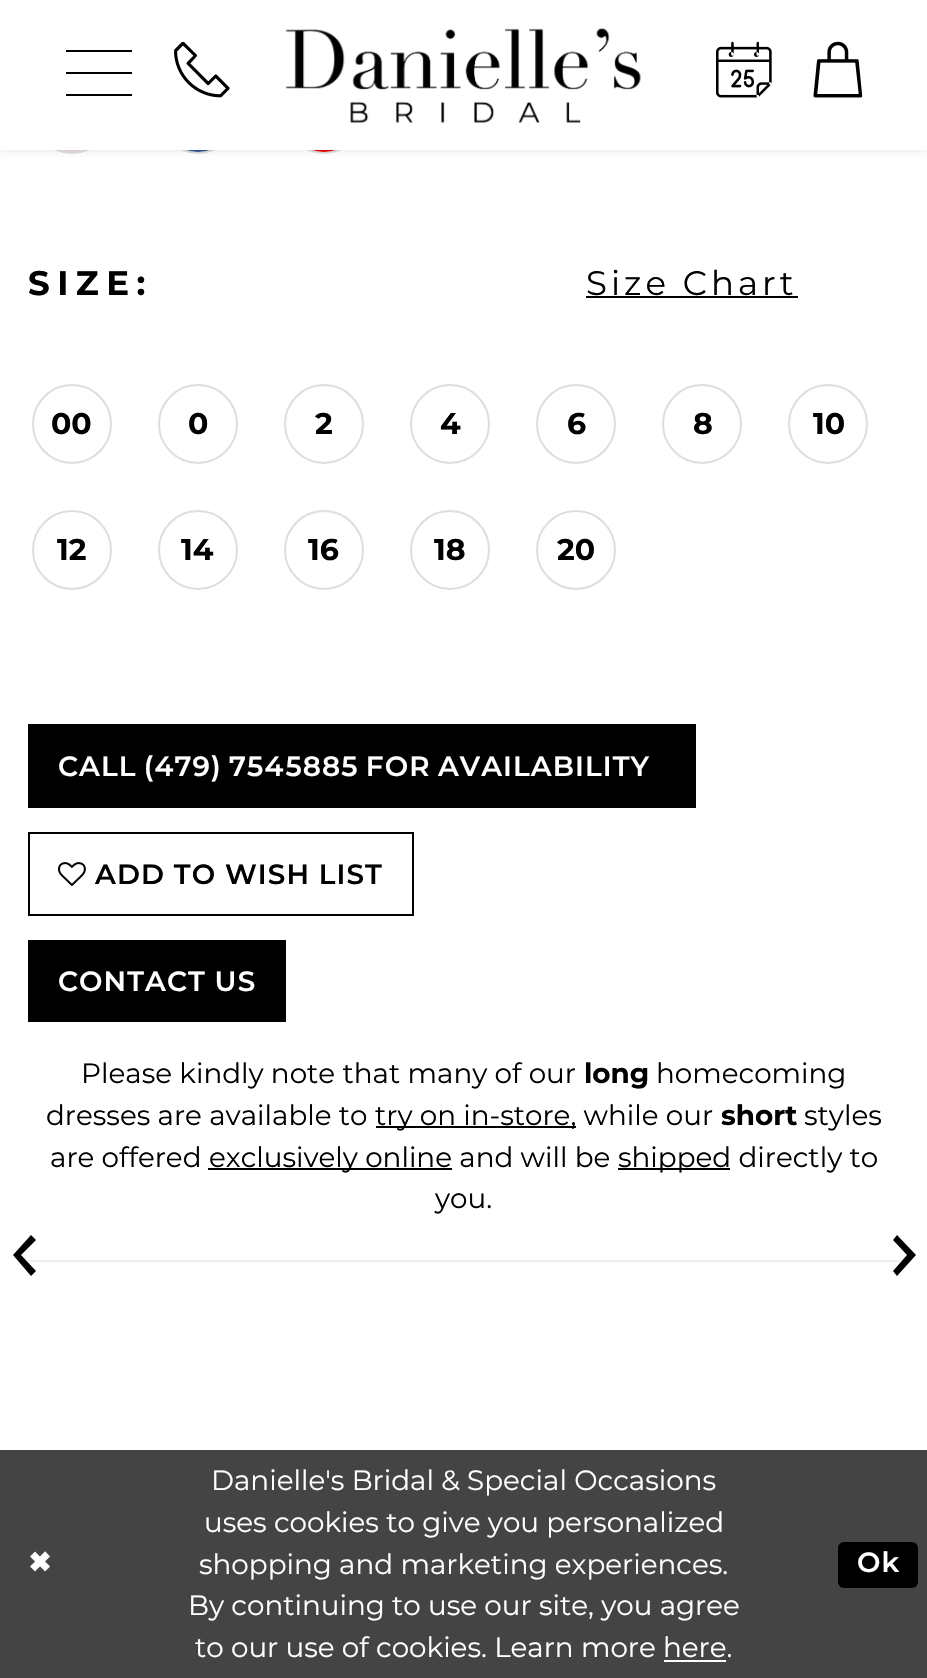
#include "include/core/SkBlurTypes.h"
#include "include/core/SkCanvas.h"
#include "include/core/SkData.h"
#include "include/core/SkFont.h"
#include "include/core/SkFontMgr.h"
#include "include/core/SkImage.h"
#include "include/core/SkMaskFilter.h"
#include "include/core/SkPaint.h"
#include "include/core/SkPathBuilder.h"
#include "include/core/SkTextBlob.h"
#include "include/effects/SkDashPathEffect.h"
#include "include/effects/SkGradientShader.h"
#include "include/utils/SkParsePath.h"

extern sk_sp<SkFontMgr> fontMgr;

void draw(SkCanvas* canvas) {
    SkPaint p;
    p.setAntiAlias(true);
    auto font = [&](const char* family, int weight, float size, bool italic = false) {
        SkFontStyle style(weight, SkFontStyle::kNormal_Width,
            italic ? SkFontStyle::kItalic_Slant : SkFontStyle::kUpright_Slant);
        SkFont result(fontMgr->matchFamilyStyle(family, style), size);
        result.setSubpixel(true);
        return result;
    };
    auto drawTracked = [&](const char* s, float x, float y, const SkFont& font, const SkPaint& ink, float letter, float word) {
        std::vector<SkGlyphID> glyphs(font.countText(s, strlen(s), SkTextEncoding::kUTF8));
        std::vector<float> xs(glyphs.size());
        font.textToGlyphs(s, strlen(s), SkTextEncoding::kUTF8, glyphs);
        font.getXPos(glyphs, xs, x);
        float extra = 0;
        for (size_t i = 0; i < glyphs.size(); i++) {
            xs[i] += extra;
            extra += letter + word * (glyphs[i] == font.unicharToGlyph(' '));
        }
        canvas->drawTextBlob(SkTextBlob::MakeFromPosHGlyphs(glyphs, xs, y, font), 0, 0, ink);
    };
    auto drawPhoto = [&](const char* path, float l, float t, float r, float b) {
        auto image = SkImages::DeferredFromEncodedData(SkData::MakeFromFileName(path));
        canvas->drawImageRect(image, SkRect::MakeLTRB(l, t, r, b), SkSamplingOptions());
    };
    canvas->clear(0xFFFFFFFF);
    p.setStyle(SkPaint::kStroke_Style);
    p.setStrokeWidth(2);
    p.setColor(0xFFDEDEDE);
    canvas->drawCircle(72, 114, 39, p);
    p.setStyle(SkPaint::kFill_Style);
    p.setColor(0xFFFDECF4);
    canvas->drawCircle(72, 114, 38, p);
    p.setStyle(SkPaint::kStroke_Style);
    p.setColor(0x1A000000);
    canvas->drawCircle(72, 114, 37, p);
    p.setColor(0xFFDEDEDE);
    canvas->drawCircle(198, 114, 39, p);
    p.setStyle(SkPaint::kFill_Style);
    p.setColor(0xFF395EA6);
    canvas->drawCircle(198, 114, 38, p);
    p.setStyle(SkPaint::kStroke_Style);
    p.setColor(0x1A000000);
    canvas->drawCircle(198, 114, 37, p);
    p.setColor(0xFFDEDEDE);
    canvas->drawCircle(324, 114, 39, p);
    p.setStyle(SkPaint::kFill_Style);
    p.setColor(0xFFFF0000);
    canvas->drawCircle(324, 114, 38, p);
    p.setStyle(SkPaint::kStroke_Style);
    p.setColor(0x1A000000);
    canvas->drawCircle(324, 114, 37, p);
    p.setStyle(SkPaint::kFill_Style);
    p.setColor(0x1C000000);
    p.setMaskFilter(SkMaskFilter::MakeBlur(kNormal_SkBlurStyle, 4));
    canvas->drawRect(SkRect::MakeLTRB(0, 0, 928, 150), p);
    p.setMaskFilter(nullptr);
    p.setColor(0xFFFFFFFF);
    canvas->drawRect(SkRect::MakeLTRB(0, 0, 927, 150), p);
    p.setColor(0xFF000000);
    canvas->drawPath(SkPathBuilder().moveTo(66, 52).lineTo(66, 50).lineTo(132, 50).lineTo(132, 52).close().moveTo(66, 74).lineTo(66, 72).lineTo(132, 72).lineTo(132, 74).close().moveTo(66, 96).lineTo(66, 94).lineTo(132, 94).lineTo(132, 96).close().detach(), p);
    drawPhoto("media/1.png", 285, 28, 641, 123);
    drawPhoto("media/2.png", 174, 41, 230, 98);
    drawPhoto("media/3.png", 716, 41, 772, 98);
    drawPhoto("media/4.png", 813, 41, 863, 98);
    auto font1 = font("Montserrat", 700, 34);
    drawTracked("SIZE:", 28, 295, font1, p, 7.5f, 0);
    auto font2 = font("Montserrat", 400, 34);
    drawTracked("Size Chart", 586, 295, font2, p, 4, 0);
    canvas->drawRect(SkRect::MakeLTRB(586, 296, 798, 298), p);
    p.setStyle(SkPaint::kStroke_Style);
    p.setColor(0xFFDEDEDE);
    canvas->drawCircle(72, 424, 39, p);
    auto font3 = font("Montserrat", 700, 30);
    p.setStyle(SkPaint::kFill_Style);
    p.setColor(0xFF000000);
    canvas->drawString("00", 51, 434, font3, p);
    p.setStyle(SkPaint::kStroke_Style);
    p.setColor(0xFFDEDEDE);
    canvas->drawCircle(198, 424, 39, p);
    p.setStyle(SkPaint::kFill_Style);
    p.setColor(0xFF000000);
    canvas->drawString("0", 188, 434, font3, p);
    p.setStyle(SkPaint::kStroke_Style);
    p.setColor(0xFFDEDEDE);
    canvas->drawCircle(324, 424, 39, p);
    p.setStyle(SkPaint::kFill_Style);
    p.setColor(0xFF000000);
    canvas->drawString("2", 315, 434, font3, p);
    p.setStyle(SkPaint::kStroke_Style);
    p.setColor(0xFFDEDEDE);
    canvas->drawCircle(450, 424, 39, p);
    p.setStyle(SkPaint::kFill_Style);
    p.setColor(0xFF000000);
    canvas->drawString("4", 440, 434, font3, p);
    p.setStyle(SkPaint::kStroke_Style);
    p.setColor(0xFFDEDEDE);
    canvas->drawCircle(576, 424, 39, p);
    p.setStyle(SkPaint::kFill_Style);
    p.setColor(0xFF000000);
    canvas->drawString("6", 567, 434, font3, p);
    p.setStyle(SkPaint::kStroke_Style);
    p.setColor(0xFFDEDEDE);
    canvas->drawCircle(702, 424, 39, p);
    p.setStyle(SkPaint::kFill_Style);
    p.setColor(0xFF000000);
    canvas->drawString("8", 693, 434, font3, p);
    p.setStyle(SkPaint::kStroke_Style);
    p.setColor(0xFFDEDEDE);
    canvas->drawCircle(828, 424, 39, p);
    p.setStyle(SkPaint::kFill_Style);
    p.setColor(0xFF000000);
    canvas->drawString("10", 813, 434, font3, p);
    p.setStyle(SkPaint::kStroke_Style);
    p.setColor(0xFFDEDEDE);
    canvas->drawCircle(72, 550, 39, p);
    p.setStyle(SkPaint::kFill_Style);
    p.setColor(0xFF000000);
    canvas->drawString("12", 57, 560, font3, p);
    p.setStyle(SkPaint::kStroke_Style);
    p.setColor(0xFFDEDEDE);
    canvas->drawCircle(198, 550, 39, p);
    p.setStyle(SkPaint::kFill_Style);
    p.setColor(0xFF000000);
    canvas->drawString("14", 181, 560, font3, p);
    p.setStyle(SkPaint::kStroke_Style);
    p.setColor(0xFFDEDEDE);
    canvas->drawCircle(324, 550, 39, p);
    p.setStyle(SkPaint::kFill_Style);
    p.setColor(0xFF000000);
    canvas->drawString("16", 308, 560, font3, p);
    p.setStyle(SkPaint::kStroke_Style);
    p.setColor(0xFFDEDEDE);
    canvas->drawCircle(450, 550, 39, p);
    p.setStyle(SkPaint::kFill_Style);
    p.setColor(0xFF000000);
    canvas->drawString("18", 434, 560, font3, p);
    p.setStyle(SkPaint::kStroke_Style);
    p.setColor(0xFFDEDEDE);
    canvas->drawCircle(576, 550, 39, p);
    p.setStyle(SkPaint::kFill_Style);
    p.setColor(0xFF000000);
    canvas->drawString("20", 557, 560, font3, p);
    canvas->drawRect(SkRect::MakeLTRB(28, 724, 696, 808), p);
    auto font4 = font("Montserrat", 600, 27.8f);
    p.setColor(0xFFFFFFFF);
    drawTracked("CALL (479) 754‑5885 FOR AVAILABILITY", 58, 776, font4, p, 1.1f, -1.5f);
    p.setStyle(SkPaint::kStroke_Style);
    p.setColor(0xFF000000);
    canvas->drawRect(SkRect::MakeLTRB(29, 833, 413, 915), p);
    drawPhoto("media/5.png", 58, 862, 86, 886);
    p.setStyle(SkPaint::kFill_Style);
    drawTracked("ADD TO WISH LIST", 95, 884, font4, p, 1.1f, 0);
    canvas->drawRect(SkRect::MakeLTRB(28, 940, 286, 1022), p);
    p.setColor(0xFFFFFFFF);
    drawTracked("CONTACT US", 58, 991, font4, p, 1.1f, 0);
    auto font5 = font("Montserrat", 400, 27.8f);
    p.setColor(0xFF000000);
    canvas->drawString("Please kindly note that many of our", 81, 1083, font5, p);
    auto font6 = font("Montserrat", 700, 27.8f);
    canvas->drawString("long", 584, 1083, font6, p);
    canvas->drawString("homecoming", 656, 1083, font5, p);
    canvas->drawString("dresses are available to", 46, 1125, font5, p);
    canvas->drawRect(SkRect::MakeLTRB(376, 1126, 576, 1128), p);
    canvas->drawString("try on in-store, while our", 375, 1125, font5, p);
    canvas->drawString("short", 721, 1125, font6, p);
    canvas->drawString("styles", 804, 1125, font5, p);
    canvas->drawString("are offered", 50, 1167, font5, p);
    canvas->drawRect(SkRect::MakeLTRB(208, 1168, 452, 1170), p);
    canvas->drawString("exclusively online and will be", 209, 1167, font5, p);
    canvas->drawRect(SkRect::MakeLTRB(618, 1168, 730, 1170), p);
    canvas->drawString("shipped directly to", 618, 1167, font5, p);
    canvas->drawString("you.", 435, 1208, font5, p);
    p.setColor(0xFFEEEEEE);
    canvas->drawRect(SkRect::MakeLTRB(28, 1260, 900, 1262), p);
    p.setColor(0xFF000000);
    canvas->drawPath(SkPathBuilder().moveTo(36, 1271).lineTo(21, 1255).lineTo(36, 1240).lineTo(31, 1235).lineTo(13, 1255).lineTo(31, 1276).close().detach(), p);
    canvas->drawPath(SkPathBuilder().moveTo(897, 1276).lineTo(916, 1255).lineTo(897, 1235).lineTo(893, 1240).lineTo(907, 1255).lineTo(893, 1271).close().detach(), p);
    p.setColor(0xFF444444);
    canvas->drawRect(SkRect::MakeLTRB(0, 1450, 927, 1678), p);
    auto font7 = font("DejaVu Sans", 700, 27.8f);
    p.setColor(0xFFFFFFFF);
    drawTracked("✖", 28, 1572, font7, p, 1.1f, 0);
    {
        const struct { const char* s; float x, y; } items[] = {
            {"Danielle's Bridal & Special Occasions", 211, 1490},
            {"uses cookies to give you personalized", 204, 1532},
            {"shopping and marketing experiences.", 199, 1574},
            {"By continuing to use our site, you agree", 188, 1615},
            {"to our use of cookies. Learn more", 195, 1657},
            {"here.", 663, 1657},
        };
        for (auto [s, x, y] : items) {
            canvas->drawString(s, x, y, font5, p);
        }
    }
    canvas->drawRect(SkRect::MakeLTRB(664, 1660, 726, 1662), p);
    p.setColor(0xFF000000);
    canvas->drawRoundRect(SkRect::MakeLTRB(838, 1542, 918, 1588), 6, 6, p);
    p.setColor(0xFFFFFFFF);
    drawTracked("Ok", 857, 1572, font4, p, 1.1f, 0);
}
